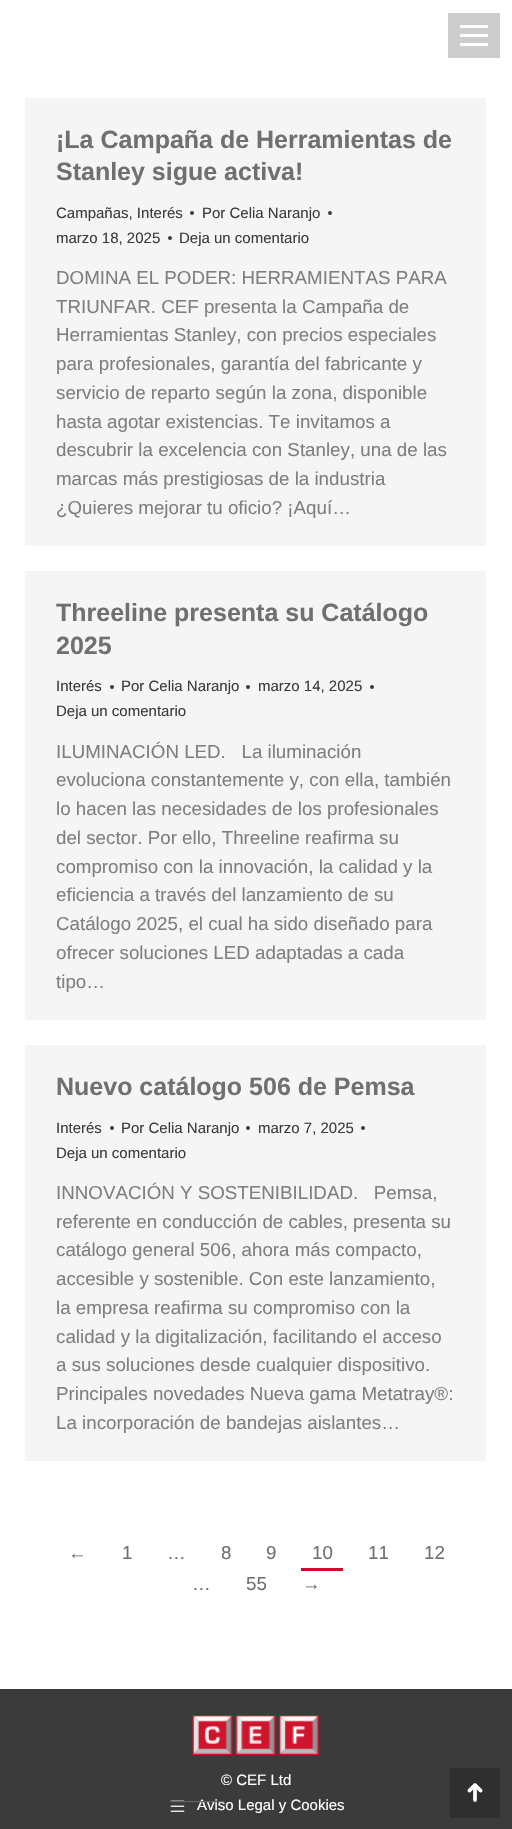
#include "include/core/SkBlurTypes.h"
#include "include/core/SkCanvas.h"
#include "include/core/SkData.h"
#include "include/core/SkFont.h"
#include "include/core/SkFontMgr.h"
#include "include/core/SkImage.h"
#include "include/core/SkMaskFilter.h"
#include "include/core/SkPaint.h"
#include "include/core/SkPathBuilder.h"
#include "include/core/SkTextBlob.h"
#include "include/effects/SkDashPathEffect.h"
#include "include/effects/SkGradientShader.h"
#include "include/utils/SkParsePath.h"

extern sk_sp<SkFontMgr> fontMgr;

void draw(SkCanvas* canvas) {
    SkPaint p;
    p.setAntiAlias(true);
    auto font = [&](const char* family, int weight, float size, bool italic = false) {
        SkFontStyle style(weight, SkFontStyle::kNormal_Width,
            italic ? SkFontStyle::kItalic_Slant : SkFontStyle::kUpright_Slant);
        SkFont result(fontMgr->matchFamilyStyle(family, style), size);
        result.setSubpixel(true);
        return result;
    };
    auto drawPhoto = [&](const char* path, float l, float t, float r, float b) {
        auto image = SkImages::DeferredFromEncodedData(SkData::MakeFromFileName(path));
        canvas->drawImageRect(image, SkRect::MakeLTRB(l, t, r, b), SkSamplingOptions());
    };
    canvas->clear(0xFFFFFFFF);
    {
        const struct { float l, t, r, b; SkColor color; } items[] = {
            {448, 13, 500, 58, 0xFFCCCCCC},
            {460, 25, 488, 28, 0xFFFFFFFF},
            {460, 34, 488, 37, 0xFFFFFFFF},
            {460, 43, 488, 46, 0xFFFFFFFF},
            {25, 98, 486, 546, 0xFFF5F5F5},
        };
        for (auto [l, t, r, b, color] : items) {
            p.setColor(color);
            canvas->drawRect(SkRect::MakeLTRB(l, t, r, b), p);
        }
    }
    auto font1 = font("Liberation Sans", 700, 25);
    p.setColor(0xFF707070);
    canvas->drawString("¡La Campaña de Herramientas de", 56, 148, font1, p);
    canvas->drawString("Stanley sigue activa!", 56, 180, font1, p);
    auto font2 = font("Liberation Sans", 400, 15);
    p.setColor(0xFF3B3B3B);
    canvas->drawString("Campañas, Interés", 56, 218, font2, p);
    canvas->drawCircle(192, 213, 2, p);
    canvas->drawString("Por Celia Naranjo", 202, 218, font2, p);
    canvas->drawCircle(330, 213, 2, p);
    canvas->drawString("marzo 18, 2025", 56, 243, font2, p);
    canvas->drawCircle(170, 238, 2, p);
    canvas->drawString("Deja un comentario", 179, 243, font2, p);
    auto font3 = font("Liberation Sans", 400, 18.75f);
    p.setColor(0xFF7F7F7F);
    {
        const struct { const char* s; float x, y; } items[] = {
            {"DOMINA EL PODER: HERRAMIENTAS PARA", 56, 284},
            {"TRIUNFAR. CEF presenta la Campaña de", 56, 313},
            {"Herramientas Stanley, con precios especiales", 56, 341},
            {"para profesionales, garantía del fabricante y", 56, 370},
            {"servicio de reparto según la zona, disponible", 56, 399},
            {"hasta agotar existencias. Te invitamos a", 56, 428},
            {"descubrir la excelencia con Stanley, una de las", 56, 456},
            {"marcas más prestigiosas de la industria", 56, 485},
            {"¿Quieres mejorar tu oficio? ¡Aquí…", 56, 514},
        };
        for (auto [s, x, y] : items) {
            canvas->drawString(s, x, y, font3, p);
        }
    }
    p.setColor(0xFFF5F5F5);
    canvas->drawRect(SkRect::MakeLTRB(25, 571, 486, 1020), p);
    p.setColor(0xFF707070);
    canvas->drawString("Threeline presenta su Catálogo", 56, 621, font1, p);
    canvas->drawString("2025", 56, 654, font1, p);
    p.setColor(0xFF3B3B3B);
    canvas->drawString("Interés", 56, 691, font2, p);
    canvas->drawCircle(112, 687, 2, p);
    canvas->drawString("Por Celia Naranjo", 121, 691, font2, p);
    canvas->drawCircle(248, 687, 2, p);
    canvas->drawString("marzo 14, 2025", 258, 691, font2, p);
    canvas->drawCircle(372, 687, 2, p);
    canvas->drawString("Deja un comentario", 56, 716, font2, p);
    p.setColor(0xFF7F7F7F);
    {
        const struct { const char* s; float x, y; } items[] = {
            {"ILUMINACIÓN LED.   La iluminación", 56, 758},
            {"evoluciona constantemente y, con ella, también", 56, 786},
            {"lo hacen las necesidades de los profesionales", 56, 815},
            {"del sector. Por ello, Threeline reafirma su", 56, 844},
            {"compromiso con la innovación, la calidad y la", 56, 873},
            {"eficiencia a través del lanzamiento de su", 56, 901},
            {"Catálogo 2025, el cual ha sido diseñado para", 56, 930},
            {"ofrecer soluciones LED adaptadas a cada", 56, 959},
            {"tipo…", 56, 988},
        };
        for (auto [s, x, y] : items) {
            canvas->drawString(s, x, y, font3, p);
        }
    }
    p.setColor(0xFFF5F5F5);
    canvas->drawRect(SkRect::MakeLTRB(25, 1045, 486, 1461), p);
    p.setColor(0xFF707070);
    canvas->drawString("Nuevo catálogo 506 de Pemsa", 56, 1095, font1, p);
    p.setColor(0xFF3B3B3B);
    canvas->drawString("Interés", 56, 1133, font2, p);
    canvas->drawCircle(112, 1128, 2, p);
    canvas->drawString("Por Celia Naranjo", 121, 1133, font2, p);
    canvas->drawCircle(248, 1128, 2, p);
    canvas->drawString("marzo 7, 2025", 258, 1133, font2, p);
    canvas->drawCircle(363, 1128, 2, p);
    canvas->drawString("Deja un comentario", 56, 1158, font2, p);
    p.setColor(0xFF7F7F7F);
    {
        const struct { const char* s; float x, y; } items[] = {
            {"INNOVACIÓN Y SOSTENIBILIDAD.   Pemsa,", 56, 1199},
            {"referente en conducción de cables, presenta su", 56, 1228},
            {"catálogo general 506, ahora más compacto,", 56, 1256},
            {"accesible y sostenible. Con este lanzamiento,", 56, 1285},
            {"la empresa reafirma su compromiso con la", 56, 1314},
            {"calidad y la digitalización, facilitando el acceso", 56, 1343},
            {"a sus soluciones desde cualquier dispositivo.", 56, 1371},
            {"Principales novedades Nueva gama Metatray®:", 56, 1400},
            {"La incorporación de bandejas aislantes…", 56, 1429},
        };
        for (auto [s, x, y] : items) {
            canvas->drawString(s, x, y, font3, p);
        }
    }
    p.setColor(0xFF707070);
    {
        const struct { const char* s; float x, y; } items[] = {
            {"←", 68, 1559},
            {"1", 122, 1559},
            {"…", 167, 1559},
            {"8", 221, 1559},
            {"9", 266, 1559},
            {"10", 312, 1559},
        };
        for (auto [s, x, y] : items) {
            canvas->drawString(s, x, y, font3, p);
        }
    }
    p.setColor(0xFFCE0E2D);
    canvas->drawRect(SkRect::MakeLTRB(301, 1568, 343, 1571), p);
    p.setColor(0xFF707070);
    {
        const struct { const char* s; float x, y; } items[] = {
            {"11", 368, 1559},
            {"12", 424, 1559},
            {"…", 192, 1590},
            {"55", 246, 1590},
            {"→", 302, 1590},
        };
        for (auto [s, x, y] : items) {
            canvas->drawString(s, x, y, font3, p);
        }
    }
    p.setColor(0xFF3B3B3B);
    canvas->drawRect(SkRect::MakeLTRB(0, 1689, 512, 1829), p);
    drawPhoto("media/1.png", 192, 1715, 319, 1755);
    p.setColor(0xFFFFFFFF);
    canvas->drawString("© CEF Ltd", 221, 1785, font2, p);
    drawPhoto("media/2.png", 170, 1800, 185, 1812);
    canvas->drawString("Aviso Legal y Cookies", 197, 1810, font2, p);
    auto font4 = font("Liberation Sans", 400, 17.5f);
    p.setColor(0xFF636363);
    canvas->drawString("———", 171, 1806, font4, p);
    p.setColor(0xFF2F2F2F);
    canvas->drawRect(SkRect::MakeLTRB(450, 1768, 500, 1818), p);
    drawPhoto("media/3.png", 467, 1783, 483, 1802);
}
